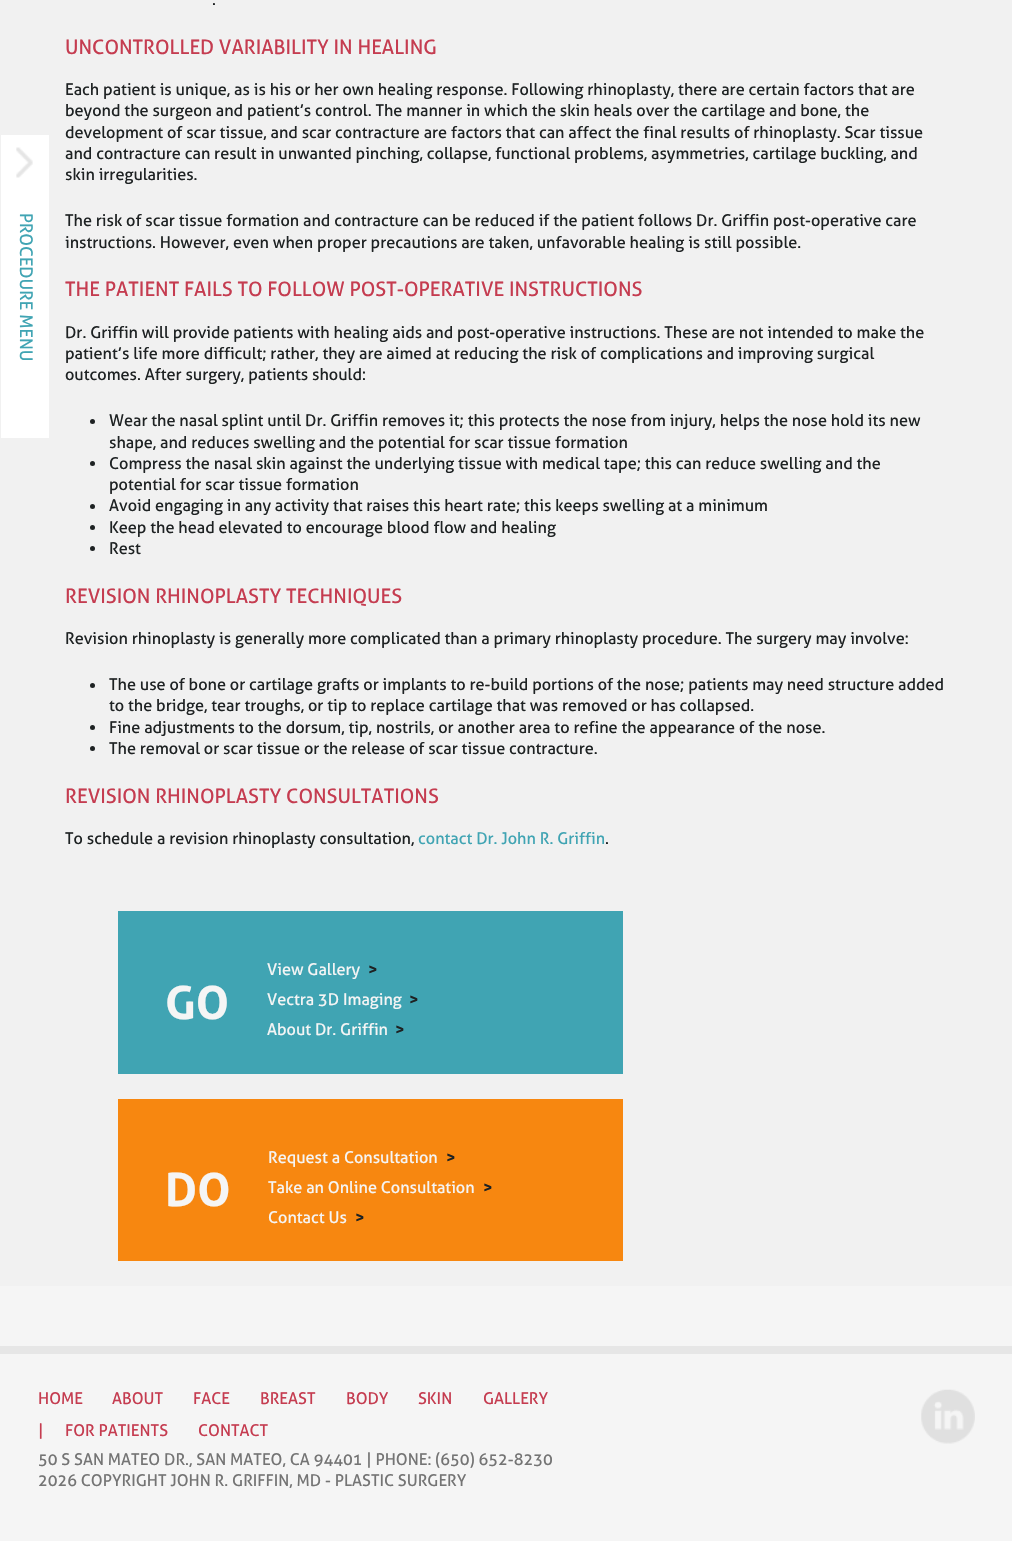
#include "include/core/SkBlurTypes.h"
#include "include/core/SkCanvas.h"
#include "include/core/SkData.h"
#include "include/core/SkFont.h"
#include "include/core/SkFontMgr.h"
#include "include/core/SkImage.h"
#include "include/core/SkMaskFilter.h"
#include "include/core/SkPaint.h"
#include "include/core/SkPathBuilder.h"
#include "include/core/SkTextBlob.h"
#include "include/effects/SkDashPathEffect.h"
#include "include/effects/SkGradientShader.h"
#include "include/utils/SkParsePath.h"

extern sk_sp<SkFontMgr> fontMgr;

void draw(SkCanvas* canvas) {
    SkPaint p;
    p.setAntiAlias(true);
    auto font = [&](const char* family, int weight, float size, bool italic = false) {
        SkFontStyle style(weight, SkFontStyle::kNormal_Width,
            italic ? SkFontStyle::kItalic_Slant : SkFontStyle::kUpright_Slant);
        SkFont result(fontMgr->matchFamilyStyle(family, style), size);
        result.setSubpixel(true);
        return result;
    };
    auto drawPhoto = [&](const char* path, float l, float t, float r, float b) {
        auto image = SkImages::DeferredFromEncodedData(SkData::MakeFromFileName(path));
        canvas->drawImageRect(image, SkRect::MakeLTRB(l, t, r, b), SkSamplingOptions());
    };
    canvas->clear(0xFFF5F5F5);
    p.setColor(0xFFF1F1F1);
    canvas->drawRect(SkRect::MakeLTRB(0, 0, 1012, 1286), p);
    p.setColor(0xFFFFFFFF);
    canvas->drawRect(SkRect::MakeLTRB(1, 135, 49, 438), p);
    drawPhoto("media/1.png", 16, 147, 33, 178);
    auto font1 = font("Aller", 400, 17.5f);
    p.setColor(0xFF40A4B3);
    canvas->save();
    canvas->rotate(90, 20, 213);
    canvas->drawString("PROCEDURE MENU", 20, 213, font1, p);
    canvas->restore();
    auto font2 = font("Aller", 400, 16.25f);
    p.setColor(0xFF1E2223);
    canvas->drawString(".", 212, 5, font2, p);
    auto font3 = font("Aller", 400, 20);
    p.setColor(0xFFC53C50);
    canvas->drawString("UNCONTROLLED VARIABILITY IN HEALING", 65, 54, font3, p);
    p.setColor(0xFF1E2223);
    {
        const struct { const char* s; float x, y; } items[] = {
            {"Each patient is unique, as is his or her own healing response. Following rhinoplasty, there are certain factors that are", 65, 95},
            {"beyond the surgeon and patient’s control. The manner in which the skin heals over the cartilage and bone, the", 65, 116},
            {"development of scar tissue, and scar contracture are factors that can affect the final results of rhinoplasty. Scar tissue", 65, 138},
            {"and contracture can result in unwanted pinching, collapse, functional problems, asymmetries, cartilage buckling, and", 65, 159},
            {"skin irregularities.", 65, 180},
            {"The risk of scar tissue formation and contracture can be reduced if the patient follows Dr. Griffin post-operative care", 65, 226},
            {"instructions. However, even when proper precautions are taken, unfavorable healing is still possible.", 65, 248},
        };
        for (auto [s, x, y] : items) {
            canvas->drawString(s, x, y, font2, p);
        }
    }
    p.setColor(0xFFC53C50);
    canvas->drawString("THE PATIENT FAILS TO FOLLOW POST-OPERATIVE INSTRUCTIONS", 65, 296, font3, p);
    p.setColor(0xFF1E2223);
    {
        const struct { const char* s; float x, y; } items[] = {
            {"Dr. Griffin will provide patients with healing aids and post-operative instructions. These are not intended to make the", 65, 338},
            {"patient’s life more difficult; rather, they are aimed at reducing the risk of complications and improving surgical", 65, 359},
            {"outcomes. After surgery, patients should:", 65, 380},
        };
        for (auto [s, x, y] : items) {
            canvas->drawString(s, x, y, font2, p);
        }
    }
    canvas->drawCircle(92.5f, 421.5f, 2.5f, p);
    canvas->drawString("Wear the nasal splint until Dr. Griffin removes it; this protects the nose from injury, helps the nose hold its new", 109, 426, font2, p);
    canvas->drawString("shape, and reduces swelling and the potential for scar tissue formation", 109, 448, font2, p);
    canvas->drawCircle(92.5f, 463.5f, 2.5f, p);
    canvas->drawString("Compress the nasal skin against the underlying tissue with medical tape; this can reduce swelling and the", 109, 469, font2, p);
    canvas->drawString("potential for scar tissue formation", 109, 490, font2, p);
    canvas->drawCircle(92.5f, 506.5f, 2.5f, p);
    canvas->drawString("Avoid engaging in any activity that raises this heart rate; this keeps swelling at a minimum", 109, 511, font2, p);
    canvas->drawCircle(92.5f, 527.5f, 2.5f, p);
    canvas->drawString("Keep the head elevated to encourage blood flow and healing", 109, 533, font2, p);
    canvas->drawCircle(92.5f, 548.5f, 2.5f, p);
    canvas->drawString("Rest", 109, 554, font2, p);
    p.setColor(0xFFC53C50);
    canvas->drawString("REVISION RHINOPLASTY TECHNIQUES", 65, 603, font3, p);
    p.setColor(0xFF1E2223);
    canvas->drawString("Revision rhinoplasty is generally more complicated than a primary rhinoplasty procedure. The surgery may involve:", 65, 644, font2, p);
    canvas->drawCircle(92.5f, 685.5f, 2.5f, p);
    canvas->drawString("The use of bone or cartilage grafts or implants to re-build portions of the nose; patients may need structure added", 109, 690, font2, p);
    canvas->drawString("to the bridge, tear troughs, or tip to replace cartilage that was removed or has collapsed.", 109, 711, font2, p);
    canvas->drawCircle(92.5f, 727.5f, 2.5f, p);
    canvas->drawString("Fine adjustments to the dorsum, tip, nostrils, or another area to refine the appearance of the nose.", 109, 733, font2, p);
    canvas->drawCircle(92.5f, 748.5f, 2.5f, p);
    canvas->drawString("The removal or scar tissue or the release of scar tissue contracture.", 109, 754, font2, p);
    p.setColor(0xFFC53C50);
    canvas->drawString("REVISION RHINOPLASTY CONSULTATIONS", 65, 803, font3, p);
    p.setColor(0xFF1E2223);
    canvas->drawString("To schedule a revision rhinoplasty consultation,", 65, 844, font2, p);
    p.setColor(0xFF40A4B3);
    canvas->drawString("contact Dr. John R. Griffin", 418, 844, font2, p);
    p.setColor(0xFF1E2223);
    canvas->drawString(".", 605, 844, font2, p);
    p.setColor(0xFF40A4B3);
    canvas->drawRect(SkRect::MakeLTRB(118, 911, 623, 1074), p);
    auto font4 = font("Aller", 700, 46);
    p.setColor(0xFFF5F5F5);
    canvas->drawString("GO", 165, 1019, font4, p);
    canvas->drawString("View Gallery", 267, 975, font2, p);
    auto font5 = font("Aller", 700, 16.25f);
    p.setColor(0xFF1E2223);
    canvas->drawString(">", 368, 975, font5, p);
    p.setColor(0xFFF5F5F5);
    canvas->drawString("Vectra 3D Imaging", 267, 1005, font2, p);
    p.setColor(0xFF1E2223);
    canvas->drawString(">", 409, 1005, font5, p);
    p.setColor(0xFFF5F5F5);
    canvas->drawString("About Dr. Griffin", 267, 1035, font2, p);
    p.setColor(0xFF1E2223);
    canvas->drawString(">", 395, 1035, font5, p);
    p.setColor(0xFFF78710);
    canvas->drawRect(SkRect::MakeLTRB(118, 1099, 623, 1261), p);
    p.setColor(0xFFF5F5F5);
    canvas->drawString("DO", 165, 1206, font4, p);
    canvas->drawString("Request a Consultation", 268, 1163, font2, p);
    p.setColor(0xFF1E2223);
    canvas->drawString(">", 446, 1163, font5, p);
    p.setColor(0xFFF5F5F5);
    canvas->drawString("Take an Online Consultation", 268, 1193, font2, p);
    p.setColor(0xFF1E2223);
    canvas->drawString(">", 483, 1193, font5, p);
    p.setColor(0xFFF5F5F5);
    canvas->drawString("Contact Us", 268, 1223, font2, p);
    p.setColor(0xFF1E2223);
    canvas->drawString(">", 355, 1223, font5, p);
    p.setColor(0xFFE6E6E6);
    canvas->drawRect(SkRect::MakeLTRB(0, 1346, 1012, 1354), p);
    p.setColor(0xFFC53C50);
    {
        const struct { const char* s; float x, y; } items[] = {
            {"HOME", 38, 1404},
            {"ABOUT", 112, 1404},
            {"FACE", 193, 1404},
            {"BREAST", 260, 1404},
            {"BODY", 346, 1404},
            {"SKIN", 418, 1404},
            {"GALLERY", 483, 1404},
            {"|", 38, 1436},
            {"FOR PATIENTS", 65, 1436},
            {"CONTACT", 198, 1436},
        };
        for (auto [s, x, y] : items) {
            canvas->drawString(s, x, y, font2, p);
        }
    }
    drawPhoto("media/2.png", 921, 1389, 975, 1444);
    p.setColor(0xFF747474);
    canvas->drawString("50 S SAN MATEO DR., SAN MATEO, CA 94401 | PHONE: (650) 652-8230", 38, 1465, font2, p);
    canvas->drawString("2026 COPYRIGHT JOHN R. GRIFFIN, MD - PLASTIC SURGERY", 38, 1486, font2, p);
}
